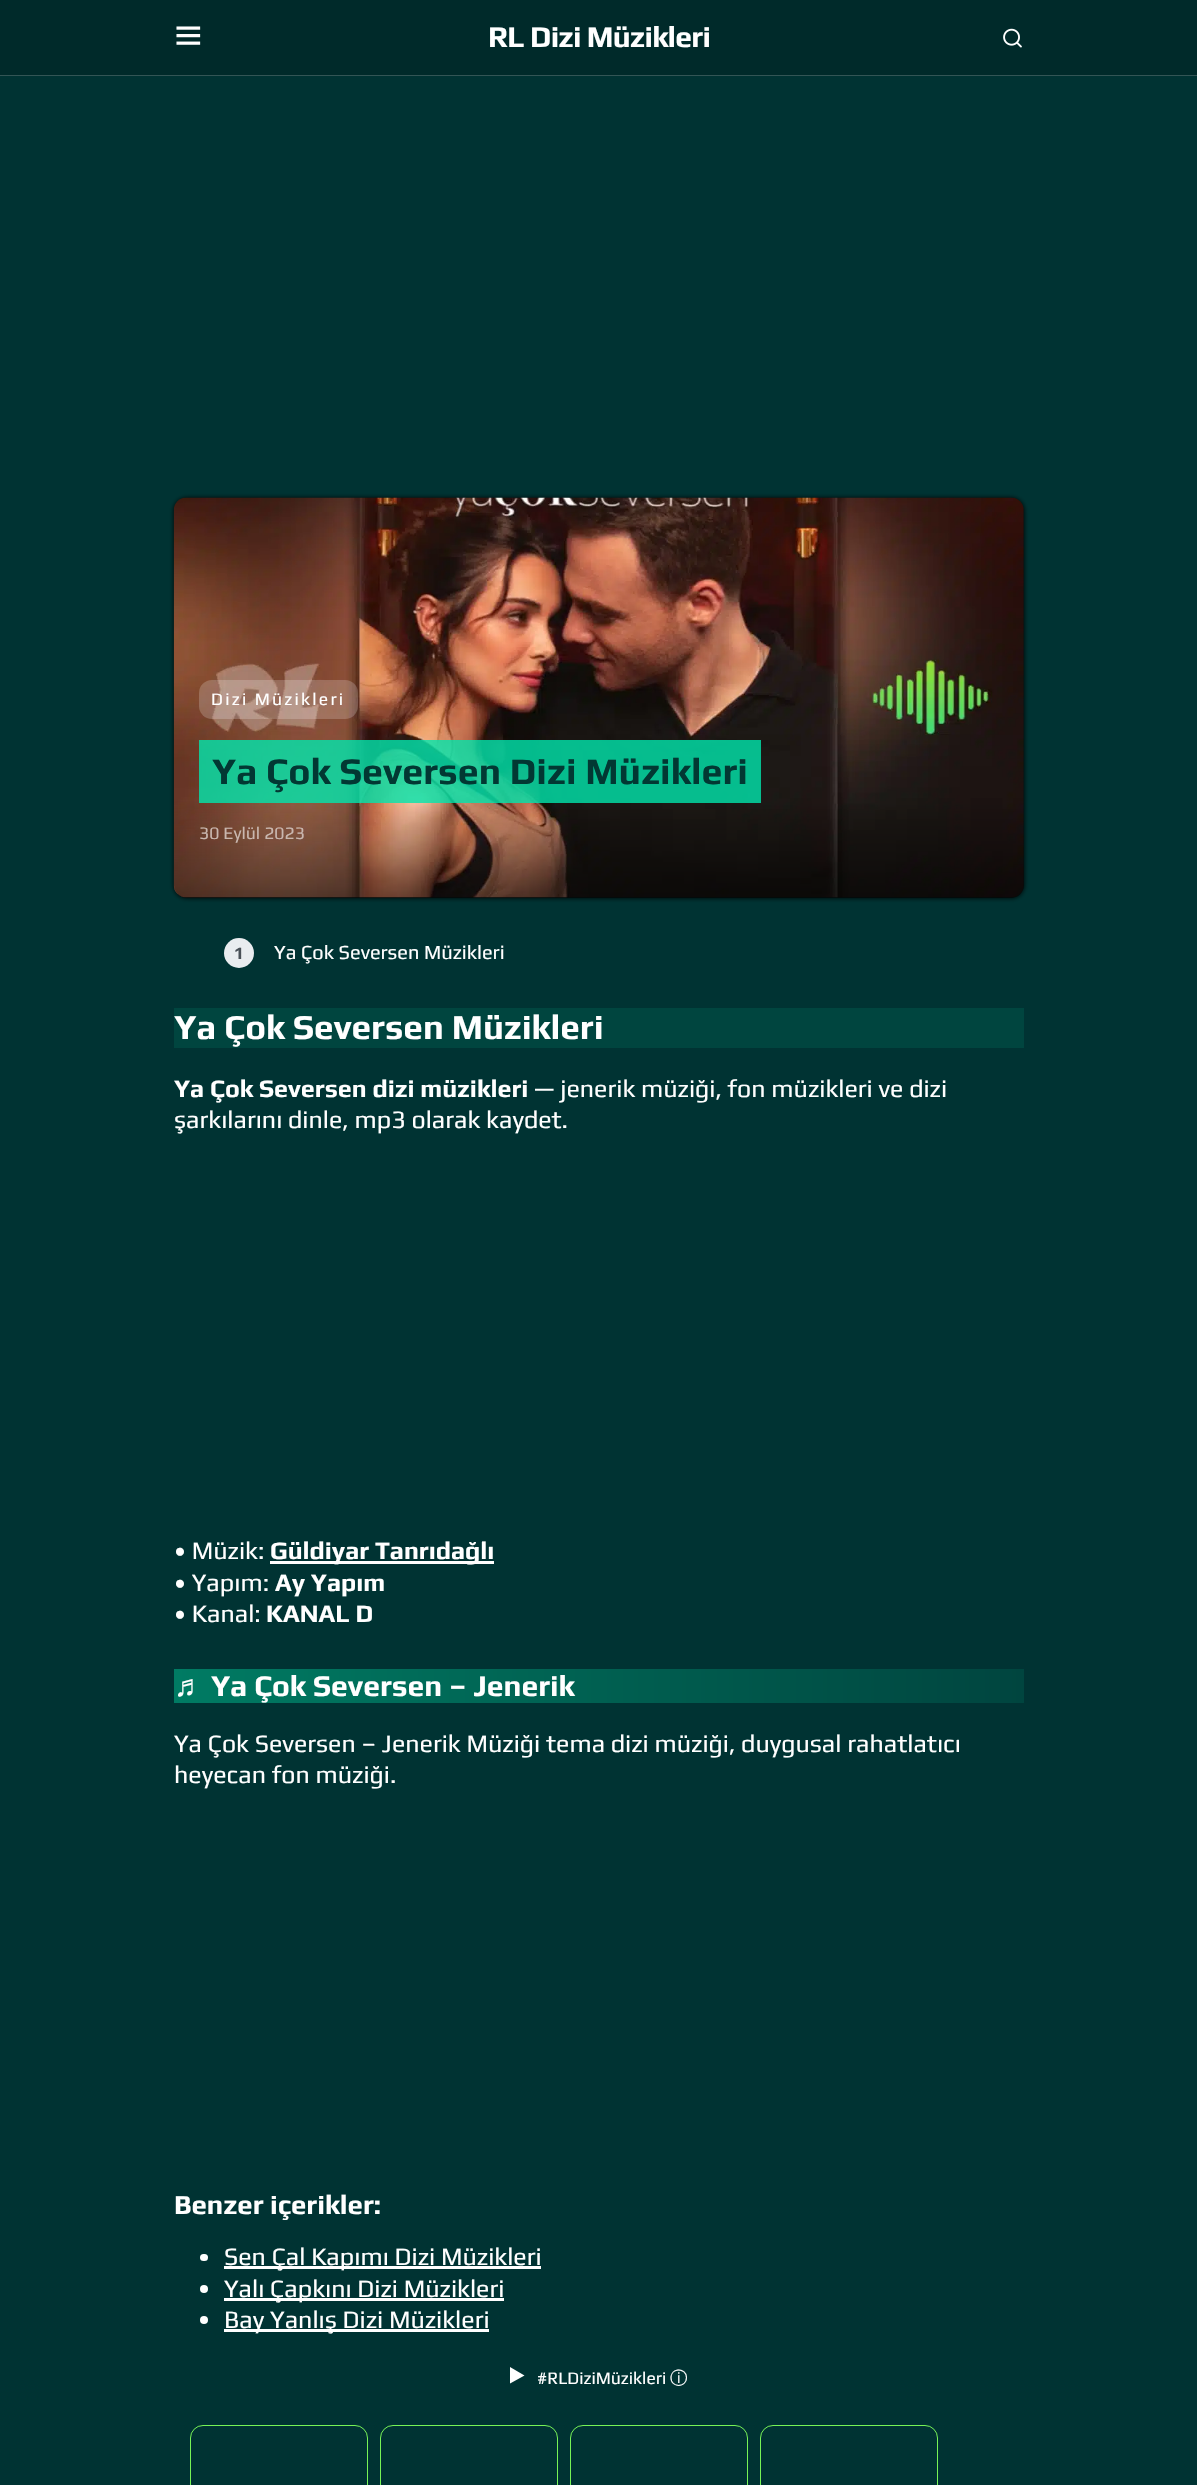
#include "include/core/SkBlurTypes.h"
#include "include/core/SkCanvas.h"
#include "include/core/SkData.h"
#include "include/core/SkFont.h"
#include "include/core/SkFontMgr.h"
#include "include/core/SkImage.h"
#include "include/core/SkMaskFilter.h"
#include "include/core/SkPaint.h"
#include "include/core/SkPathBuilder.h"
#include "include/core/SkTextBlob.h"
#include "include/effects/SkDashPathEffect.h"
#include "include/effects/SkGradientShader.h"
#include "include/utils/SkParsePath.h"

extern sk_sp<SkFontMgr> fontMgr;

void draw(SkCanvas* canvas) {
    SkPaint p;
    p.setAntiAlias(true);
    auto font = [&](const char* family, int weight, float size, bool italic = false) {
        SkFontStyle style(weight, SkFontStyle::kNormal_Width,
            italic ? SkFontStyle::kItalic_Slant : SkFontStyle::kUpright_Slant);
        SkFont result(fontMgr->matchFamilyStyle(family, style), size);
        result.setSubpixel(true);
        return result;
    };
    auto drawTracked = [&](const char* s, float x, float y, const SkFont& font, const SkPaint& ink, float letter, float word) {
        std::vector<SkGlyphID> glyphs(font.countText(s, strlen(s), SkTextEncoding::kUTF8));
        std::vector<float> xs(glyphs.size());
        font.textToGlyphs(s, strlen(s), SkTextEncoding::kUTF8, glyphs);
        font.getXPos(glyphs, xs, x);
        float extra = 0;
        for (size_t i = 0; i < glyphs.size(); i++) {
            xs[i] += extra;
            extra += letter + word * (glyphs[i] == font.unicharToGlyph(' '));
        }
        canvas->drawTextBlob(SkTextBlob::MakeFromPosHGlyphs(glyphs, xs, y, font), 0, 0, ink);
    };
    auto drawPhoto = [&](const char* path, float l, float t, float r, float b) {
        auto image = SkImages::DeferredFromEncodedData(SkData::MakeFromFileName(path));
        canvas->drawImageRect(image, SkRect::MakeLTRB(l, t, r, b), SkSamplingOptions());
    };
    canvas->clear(0xFF003333);
    p.setColor(0xFF002A2A);
    canvas->drawRect(SkRect::MakeLTRB(0, 0, 1197, 75), p);
    p.setColor(0xFF335555);
    canvas->drawRect(SkRect::MakeLTRB(0, 75, 1197, 76), p);
    drawPhoto("media/1.png", 176, 26, 201, 45);
    auto font1 = font("Play", 700, 30);
    p.setColor(0xFFFFFFFF);
    drawTracked("RL Dizi Müzikleri", 488, 47, font1, p, -0.75f, 0);
    drawPhoto("media/2.png", 1003, 28, 1022, 48);
    p.setColor(0xFF000000);
    p.setMaskFilter(SkMaskFilter::MakeBlur(kNormal_SkBlurStyle, 2.5f));
    canvas->drawRoundRect(SkRect::MakeLTRB(174, 498, 1024, 898), 13, 13, p);
    p.setMaskFilter(nullptr);
    drawPhoto("media/3.png", 173, 497, 1024, 898);
    {
        const SkColor colors[] = {0x00000000, 0x80000000};
        const float stops[] = {0.75f, 1};
        const SkPoint ends[] = {{599, 498}, {599, 898}};
        p.setShader(SkGradientShader::MakeLinear(ends, colors, stops, 2, SkTileMode::kClamp));
        p.setAlpha(255);
    }
    canvas->drawRoundRect(SkRect::MakeLTRB(174, 498, 1024, 898), 13, 13, p);
    p.setShader(nullptr);
    p.setColor(0x33FFFFFF);
    canvas->drawRoundRect(SkRect::MakeLTRB(199, 680, 358, 719), 13, 13, p);
    auto font2 = font("Play", 400, 17.5f);
    p.setColor(0xFFFFFFFF);
    drawTracked("Dizi Müzikleri", 211, 705, font2, p, 2.25f, 0);
    p.setColor(0xCC00E6AC);
    canvas->drawRect(SkRect::MakeLTRB(199, 740, 761, 803), p);
    auto font3 = font("Play", 700, 37.5f);
    p.setColor(0xFF023833);
    canvas->drawString("Ya Çok Seversen Dizi Müzikleri", 212, 784, font3, p);
    p.setColor(0xFFC9B7AF);
    canvas->drawString("30 Eylül 2023", 199, 839, font2, p);
    p.setColor(0xFFE9ECEF);
    canvas->drawCircle(239, 953, 15, p);
    auto font4 = font("Play", 700, 17.5f);
    p.setColor(0xFF495057);
    canvas->drawString("1", 234, 959, font4, p);
    auto font5 = font("Play", 400, 20);
    p.setColor(0xFFFFFFFF);
    canvas->drawString("Ya Çok Seversen Müzikleri", 274, 959, font5, p);
    p.setColor(0xFF00453F);
    canvas->drawRect(SkRect::MakeLTRB(174, 1008, 1024, 1048), p);
    auto font6 = font("Play", 700, 35);
    p.setColor(0xFFFFFFFF);
    canvas->drawString("Ya Çok Seversen Müzikleri", 174, 1039, font6, p);
    auto font7 = font("Play", 700, 25);
    canvas->drawString("Ya Çok Seversen dizi müzikleri", 174, 1097, font7, p);
    auto font8 = font("Play", 400, 25);
    {
        const struct { const char* s; float x, y; } items[] = {
            {"— jenerik müziği, fon müzikleri ve dizi", 534, 1097},
            {"şarkılarını dinle, mp3 olarak kaydet.", 174, 1128},
            {"• Müzik:", 174, 1559},
        };
        for (auto [s, x, y] : items) {
            canvas->drawString(s, x, y, font8, p);
        }
    }
    canvas->drawRect(SkRect::MakeLTRB(270, 1561, 494, 1564), p);
    canvas->drawString("Güldiyar Tanrıdağlı", 270, 1559, font7, p);
    canvas->drawString("• Yapım:", 174, 1591, font8, p);
    canvas->drawString("Ay Yapım", 275, 1591, font7, p);
    canvas->drawString("• Kanal:", 174, 1622, font8, p);
    canvas->drawString("KANAL D", 266, 1622, font7, p);
    {
        const SkColor colors[] = {0xFF007B63, 0xFF00453F};
        const float stops[] = {0, 1};
        const SkPoint ends[] = {{174, 1686}, {1024, 1686}};
        p.setShader(SkGradientShader::MakeLinear(ends, colors, stops, 2, SkTileMode::kClamp));
        p.setAlpha(255);
    }
    canvas->drawRect(SkRect::MakeLTRB(174, 1669, 1024, 1703), p);
    auto font9 = font("Liberation Sans", 700, 30);
    p.setShader(nullptr);
    p.setColor(0xFFFFFFFF);
    canvas->drawString("♬", 174, 1696, font9, p);
    canvas->drawString("Ya Çok Seversen – Jenerik", 211, 1696, font1, p);
    canvas->drawString("Ya Çok Seversen – Jenerik Müziği tema dizi müziği, duygusal rahatlatıcı", 174, 1752, font8, p);
    canvas->drawString("heyecan fon müziği.", 174, 1783, font8, p);
    auto font10 = font("Play", 700, 27.5f);
    canvas->drawString("Benzer içerikler:", 174, 2214, font10, p);
    canvas->drawRoundRect(SkRect::MakeLTRB(200, 2254, 208, 2261), 3.5f, 3.5f, p);
    canvas->drawRect(SkRect::MakeLTRB(224, 2266, 541, 2269), p);
    canvas->drawString("Sen Çal Kapımı Dizi Müzikleri", 224, 2265, font8, p);
    canvas->drawCircle(204, 2289, 4, p);
    canvas->drawRect(SkRect::MakeLTRB(224, 2298, 504, 2301), p);
    canvas->drawString("Yalı Çapkını Dizi Müzikleri", 224, 2297, font8, p);
    canvas->drawCircle(204, 2320, 4, p);
    canvas->drawRect(SkRect::MakeLTRB(224, 2329, 489, 2332), p);
    canvas->drawString("Bay Yanlış Dizi Müzikleri", 224, 2328, font8, p);
    canvas->drawPath(SkPathBuilder().moveTo(510, 2367).lineTo(524.5f, 2375.5f).lineTo(510, 2383.5f).close().detach(), p);
    canvas->drawString("#RLDiziMüzikleri", 537, 2384, font2, p);
    auto font11 = font("WenQuanYi Zen Hei", 500, 17.5f);
    canvas->drawString("ⓘ", 670, 2384, font11, p);
    p.setStyle(SkPaint::kStroke_Style);
    p.setStrokeWidth(1);
    p.setColor(0xFF77F356);
    canvas->drawRoundRect(SkRect::MakeLTRB(190.5f, 2425.5f, 367.5f, 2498.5f), 12.5f, 12.5f, p);
    canvas->drawRoundRect(SkRect::MakeLTRB(380.5f, 2425.5f, 557.5f, 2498.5f), 12.5f, 12.5f, p);
    canvas->drawRoundRect(SkRect::MakeLTRB(570.5f, 2425.5f, 747.5f, 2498.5f), 12.5f, 12.5f, p);
    canvas->drawRoundRect(SkRect::MakeLTRB(760.5f, 2425.5f, 937.5f, 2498.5f), 12.5f, 12.5f, p);
}
